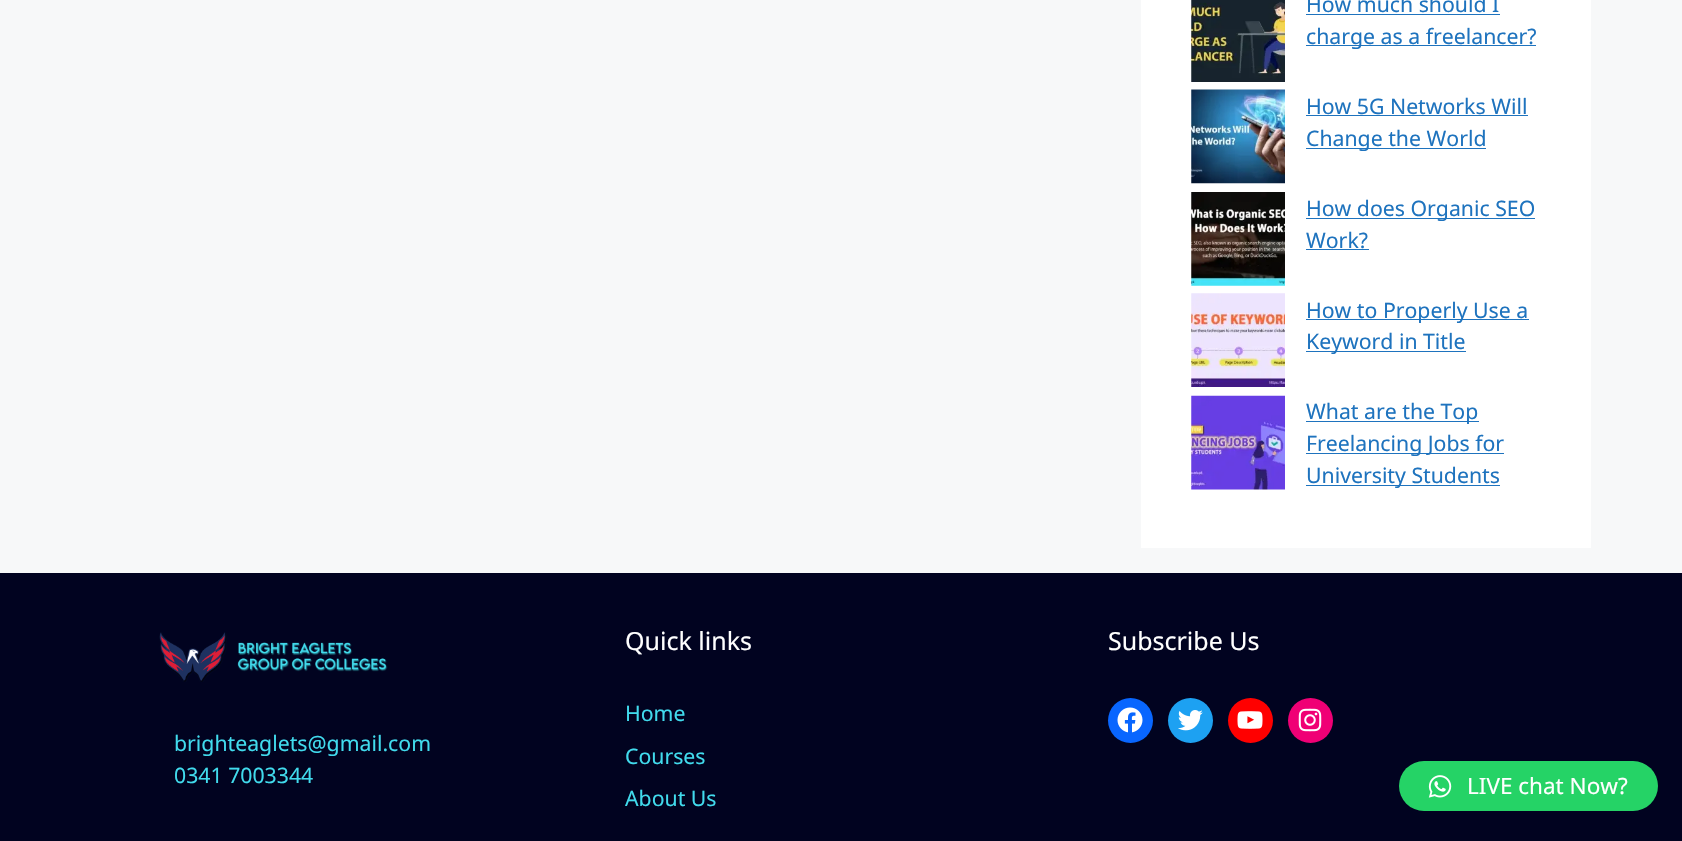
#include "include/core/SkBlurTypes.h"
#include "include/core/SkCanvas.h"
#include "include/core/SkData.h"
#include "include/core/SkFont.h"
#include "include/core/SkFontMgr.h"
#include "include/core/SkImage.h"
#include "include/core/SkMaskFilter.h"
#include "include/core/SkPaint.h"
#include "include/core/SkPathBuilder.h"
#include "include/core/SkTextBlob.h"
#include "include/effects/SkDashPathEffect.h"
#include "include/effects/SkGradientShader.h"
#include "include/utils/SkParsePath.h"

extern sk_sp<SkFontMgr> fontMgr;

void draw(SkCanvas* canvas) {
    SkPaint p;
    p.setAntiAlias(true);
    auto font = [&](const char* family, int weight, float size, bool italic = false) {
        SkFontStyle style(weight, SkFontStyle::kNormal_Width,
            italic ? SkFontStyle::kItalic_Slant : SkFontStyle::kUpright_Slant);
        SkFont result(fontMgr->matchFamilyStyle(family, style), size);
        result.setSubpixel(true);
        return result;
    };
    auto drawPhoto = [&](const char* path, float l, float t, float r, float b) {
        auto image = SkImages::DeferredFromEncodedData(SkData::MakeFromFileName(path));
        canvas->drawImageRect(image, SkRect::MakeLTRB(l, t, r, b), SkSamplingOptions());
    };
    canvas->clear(0xFFF7F8F9);
    p.setColor(0xFFFFFFFF);
    canvas->drawRect(SkRect::MakeLTRB(1141, 0, 1591, 548), p);
    drawPhoto("media/1.png", 1191, 0, 1285, 82);
    auto font1 = font("Noto Sans", 400, 21.25f);
    p.setColor(0xFF1E73BE);
    canvas->drawString("How much should I", 1306, 12, font1, p);
    canvas->drawRect(SkRect::MakeLTRB(1306, 14, 1500, 15), p);
    canvas->drawRect(SkRect::MakeLTRB(1306, 45, 1536, 46), p);
    canvas->drawString("charge as a freelancer?", 1306, 44, font1, p);
    drawPhoto("media/2.png", 1191, 89, 1285, 184);
    canvas->drawString("How 5G Networks Will", 1306, 114, font1, p);
    canvas->drawRect(SkRect::MakeLTRB(1306, 115, 1528, 116), p);
    canvas->drawRect(SkRect::MakeLTRB(1306, 148, 1486, 149), p);
    canvas->drawString("Change the World", 1306, 146, font1, p);
    drawPhoto("media/3.png", 1191, 192, 1285, 286);
    canvas->drawRect(SkRect::MakeLTRB(1306, 218, 1535, 219), p);
    canvas->drawString("How does Organic SEO", 1306, 216, font1, p);
    canvas->drawString("Work?", 1306, 248, font1, p);
    canvas->drawRect(SkRect::MakeLTRB(1306, 249, 1369, 250), p);
    drawPhoto("media/4.png", 1191, 293, 1285, 387);
    canvas->drawRect(SkRect::MakeLTRB(1306, 319, 1529, 320), p);
    canvas->drawString("How to Properly Use a", 1306, 318, font1, p);
    canvas->drawRect(SkRect::MakeLTRB(1306, 351, 1466, 352), p);
    canvas->drawString("Keyword in Title", 1306, 349, font1, p);
    drawPhoto("media/5.png", 1191, 395, 1285, 490);
    canvas->drawRect(SkRect::MakeLTRB(1306, 421, 1479, 422), p);
    canvas->drawString("What are the Top", 1306, 419, font1, p);
    canvas->drawRect(SkRect::MakeLTRB(1306, 453, 1504, 454), p);
    canvas->drawString("Freelancing Jobs for", 1306, 451, font1, p);
    canvas->drawRect(SkRect::MakeLTRB(1306, 485, 1500, 486), p);
    canvas->drawString("University Students", 1306, 483, font1, p);
    p.setColor(0xFF010320);
    canvas->drawRect(SkRect::MakeLTRB(0, 573, 1682, 841), p);
    auto font2 = font("Noto Sans", 400, 25);
    p.setColor(0xFFFFFFFF);
    canvas->drawString("Quick links", 625, 650, font2, p);
    p.setColor(0xFF41DBED);
    {
        const struct { const char* s; float x, y; } items[] = {
            {"Home", 625, 721},
            {"Courses", 625, 764},
            {"About Us", 625, 806},
        };
        for (auto [s, x, y] : items) {
            canvas->drawString(s, x, y, font1, p);
        }
    }
    p.setColor(0xFFFFFFFF);
    canvas->drawString("Subscribe Us", 1108, 650, font2, p);
    p.setColor(0xFF0866FF);
    canvas->drawCircle(1130.5f, 720.5f, 22.5f, p);
    drawPhoto("media/6.png", 1117, 707, 1143, 733);
    p.setColor(0xFF1DA1F2);
    canvas->drawCircle(1190.5f, 720.5f, 22.5f, p);
    drawPhoto("media/7.png", 1178, 710, 1203, 731);
    p.setColor(0xFFFF0000);
    canvas->drawCircle(1250.5f, 720.5f, 22.5f, p);
    drawPhoto("media/8.png", 1237, 711, 1263, 729);
    p.setColor(0xFFF00075);
    canvas->drawCircle(1310.5f, 720.5f, 22.5f, p);
    drawPhoto("media/9.png", 1298, 708, 1322, 732);
    drawPhoto("media/10.png", 159, 632, 388, 682);
    p.setColor(0xFF41DBED);
    canvas->drawString("brighteaglets@gmail.com", 174, 751, font1, p);
    canvas->drawString("0341 7003344", 174, 783, font1, p);
    p.setColor(0xFF25D366);
    canvas->drawRoundRect(SkRect::MakeLTRB(1399, 761, 1658, 811), 25, 25, p);
    drawPhoto("media/11.png", 1428, 775, 1452, 798);
    auto font3 = font("Noto Sans", 400, 22.5f);
    p.setColor(0xFFFFFFFF);
    canvas->drawString("LIVE chat Now?", 1467, 794, font3, p);
}
